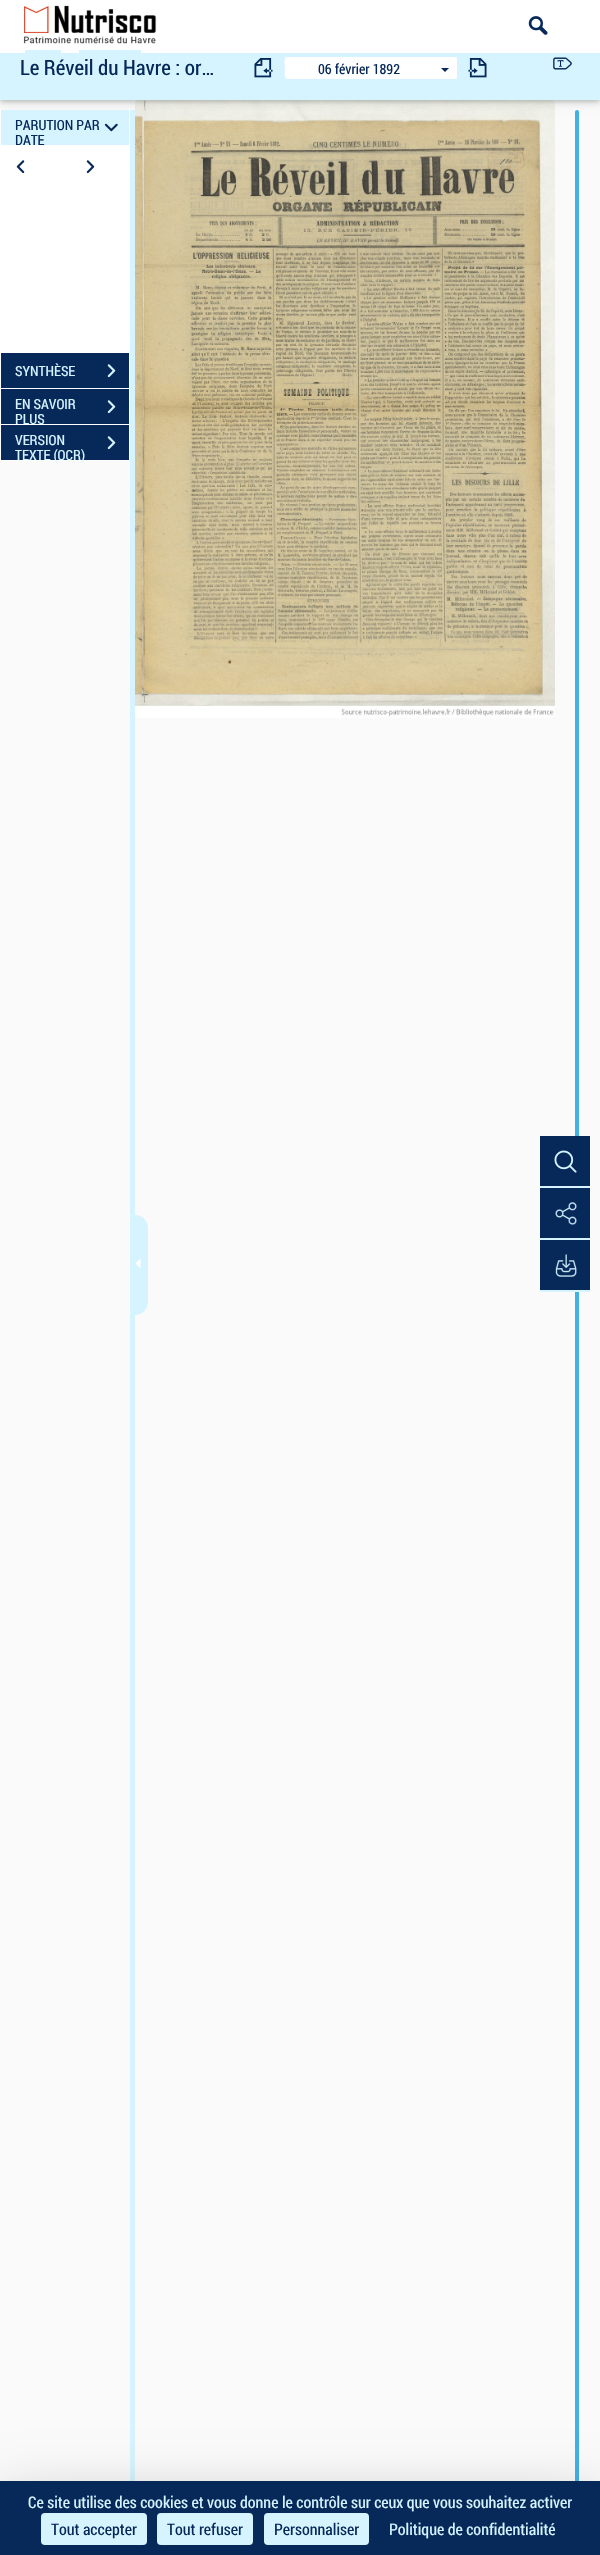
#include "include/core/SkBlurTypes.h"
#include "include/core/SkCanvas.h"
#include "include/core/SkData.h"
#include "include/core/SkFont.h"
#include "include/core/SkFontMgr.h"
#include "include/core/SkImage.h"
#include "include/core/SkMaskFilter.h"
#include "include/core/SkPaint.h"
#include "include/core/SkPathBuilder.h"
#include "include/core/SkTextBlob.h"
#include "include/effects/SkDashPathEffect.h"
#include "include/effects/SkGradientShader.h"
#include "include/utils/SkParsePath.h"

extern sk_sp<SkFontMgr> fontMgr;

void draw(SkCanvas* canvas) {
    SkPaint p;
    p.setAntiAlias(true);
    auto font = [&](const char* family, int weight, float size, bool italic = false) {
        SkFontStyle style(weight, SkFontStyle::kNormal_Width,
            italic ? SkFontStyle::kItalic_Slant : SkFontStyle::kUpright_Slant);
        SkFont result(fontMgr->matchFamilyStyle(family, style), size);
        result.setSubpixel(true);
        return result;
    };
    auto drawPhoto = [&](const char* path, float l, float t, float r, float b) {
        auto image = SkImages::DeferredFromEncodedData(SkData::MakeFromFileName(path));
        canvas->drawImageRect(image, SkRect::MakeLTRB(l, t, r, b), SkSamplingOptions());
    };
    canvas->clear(0xFFFAFAFA);
    drawPhoto("media/11.png", 135, 100, 555, 718);
    p.setColor(0xFF42B1E6);
    canvas->drawRoundRect(SkRect::MakeLTRB(575, 110, 579, 2535), 2, 2, p);
    p.setColor(0x1F000000);
    p.setMaskFilter(SkMaskFilter::MakeBlur(kNormal_SkBlurStyle, 5));
    canvas->drawRect(SkRect::MakeLTRB(0, 52, 600, 102), p);
    p.setMaskFilter(nullptr);
    p.setColor(0x29000000);
    p.setMaskFilter(SkMaskFilter::MakeBlur(kNormal_SkBlurStyle, 2));
    canvas->drawRect(SkRect::MakeLTRB(0, 52, 600, 102), p);
    p.setMaskFilter(nullptr);
    p.setColor(0xFFFFFFFF);
    canvas->drawRect(SkRect::MakeLTRB(0, 0, 600, 53), p);
    drawPhoto("media/1.png", 23, 5, 157, 44);
    drawPhoto("media/2.png", 528, 16, 548, 35);
    {
        const struct { float l, t, r, b; SkColor color; } items[] = {
            {0, 53, 600, 100, 0xFFD6F4FF},
            {25, 50, 61, 53, 0xFFD6F4FF},
            {79, 50, 141, 53, 0xFFD6F4FF},
        };
        for (auto [l, t, r, b, color] : items) {
            p.setColor(color);
            canvas->drawRect(SkRect::MakeLTRB(l, t, r, b), p);
        }
    }
    auto font1 = font("Roboto Condensed", 400, 21);
    p.setColor(0xFF06295A);
    canvas->drawString("Le Réveil du Havre : or…", 20, 75, font1, p);
    drawPhoto("media/3.png", 254, 58, 273, 78);
    p.setColor(0xFFFFFFFF);
    canvas->drawPath(SkPathBuilder().moveTo(287, 56).lineTo(434, 56).lineTo(434, 80).lineTo(287, 80).cubicTo(285.5f, 80, 284, 78.5f, 284, 77).lineTo(284, 59).cubicTo(284, 57.5f, 285.5f, 56, 287, 56).close().detach(), p);
    p.setColor(0xFFD6F4FF);
    canvas->drawPath(SkPathBuilder(SkPathFillType::kEvenOdd).moveTo(287, 56).lineTo(434, 56).lineTo(434, 80).lineTo(286, 80).cubicTo(282, 79, 284, 71, 284, 68).cubicTo(284, 65, 282, 56, 287, 56).close().moveTo(287, 57).lineTo(434, 57).lineTo(434, 79).lineTo(287, 79).cubicTo(284, 78, 285, 70, 285, 68).cubicTo(285, 66, 283, 57, 287, 57).close().detach(), p);
    auto font2 = font("Roboto Condensed", 400, 14);
    p.setColor(0xFF06295A);
    canvas->drawString("06 février 1892", 318, 74, font2, p);
    p.setColor(0xFFFFFFFF);
    canvas->drawPath(SkPathBuilder().moveTo(433, 56).lineTo(455, 56).cubicTo(456.5f, 56, 458, 57.5f, 458, 59).lineTo(458, 77).cubicTo(458, 78.5f, 456.5f, 80, 455, 80).lineTo(433, 80).close().detach(), p);
    p.setColor(0xFFD6F4FF);
    canvas->drawPath(SkPathBuilder(SkPathFillType::kEvenOdd).moveTo(433, 56).lineTo(455, 56).cubicTo(456.5f, 56, 458, 57.5f, 458, 59).lineTo(458, 77).cubicTo(458, 78.5f, 456.5f, 80, 455, 80).lineTo(433, 80).close().moveTo(433, 57).lineTo(455, 57).cubicTo(456, 57, 457, 58, 457, 59).lineTo(457, 77).cubicTo(457, 78, 456, 79, 455, 79).lineTo(433, 79).close().detach(), p);
    p.setColor(0xFF06295A);
    canvas->drawPath(SkPathBuilder().moveTo(441, 68).lineTo(449, 68).lineTo(445, 72).close().detach(), p);
    drawPhoto("media/4.png", 468, 58, 487, 78);
    drawPhoto("media/5.png", 553, 57, 572, 70);
    {
        const struct { float l, t, r, b; SkColor color; } items[] = {
            {130, 110, 135, 2481, 0xFFD6F4FF},
            {0, 110, 130, 461, 0xFFFFFFFF},
            {1, 110, 129, 145, 0xFFD6F4FF},
        };
        for (auto [l, t, r, b, color] : items) {
            p.setColor(color);
            canvas->drawRect(SkRect::MakeLTRB(l, t, r, b), p);
        }
    }
    p.setColor(0xFF06295A);
    canvas->drawString("PARUTION PAR", 15, 130, font2, p);
    drawPhoto("media/6.png", 104, 123, 118, 132);
    canvas->drawString("DATE", 15, 145, font2, p);
    drawPhoto("media/7.png", 16, 160, 25, 174);
    drawPhoto("media/8.png", 86, 160, 95, 174);
    canvas->drawRect(SkRect::MakeLTRB(1, 353, 129, 388), p);
    p.setColor(0xFFD6F4FF);
    canvas->drawString("SYNTHÈSE", 15, 376, font2, p);
    drawPhoto("media/9.png", 107, 364, 116, 378);
    p.setColor(0xFF06295A);
    canvas->drawRect(SkRect::MakeLTRB(1, 389, 129, 424), p);
    p.setColor(0xFFD6F4FF);
    canvas->drawString("EN SAVOIR", 15, 409, font2, p);
    drawPhoto("media/9.png", 107, 400, 116, 414);
    canvas->drawString("PLUS", 15, 424, font2, p);
    p.setColor(0xFF06295A);
    canvas->drawRect(SkRect::MakeLTRB(1, 425, 129, 460), p);
    p.setColor(0xFFD6F4FF);
    canvas->drawString("VERSION", 15, 445, font2, p);
    drawPhoto("media/9.png", 107, 436, 116, 450);
    canvas->drawString("TEXTE (OCR)", 15, 460, font2, p);
    canvas->drawPath(SkPathBuilder().moveTo(135.5f, 1215.5f).lineTo(135, 1215.5f).cubicTo(142, 1215.5f, 147.5f, 1221, 147.5f, 1228).lineTo(147.5f, 1302).cubicTo(147.5f, 1309, 142, 1314.5f, 135, 1314.5f).lineTo(135.5f, 1314.5f).close().detach(), p);
    p.setStyle(SkPaint::kStroke_Style);
    p.setStrokeWidth(1);
    canvas->drawPath(SkPathBuilder().moveTo(135.5f, 1215.5f).lineTo(135, 1215.5f).cubicTo(142, 1215.5f, 147.5f, 1221, 147.5f, 1228).lineTo(147.5f, 1302).cubicTo(147.5f, 1309, 142, 1314.5f, 135, 1314.5f).lineTo(135.5f, 1314.5f).close().detach(), p);
    drawPhoto("media/10.png", 135, 1259, 141, 1268);
    p.setStyle(SkPaint::kFill_Style);
    p.setColor(0xFF06295A);
    canvas->drawRect(SkRect::MakeLTRB(540, 1136, 590, 1186), p);
    drawPhoto("media/12.png", 554, 1150, 577, 1173);
    p.setColor(0xFFD6F4FF);
    canvas->drawRect(SkRect::MakeLTRB(540, 1186, 590, 1188), p);
    p.setColor(0xFF06295A);
    canvas->drawRect(SkRect::MakeLTRB(540, 1188, 590, 1238), p);
    drawPhoto("media/13.png", 555, 1202, 577, 1225);
    p.setColor(0xFFD6F4FF);
    canvas->drawRect(SkRect::MakeLTRB(540, 1238, 590, 1240), p);
    p.setColor(0xFF06295A);
    canvas->drawRect(SkRect::MakeLTRB(540, 1240, 590, 1290), p);
    drawPhoto("media/14.png", 555, 1254, 577, 1277);
    p.setColor(0xFFD6F4FF);
    canvas->drawRect(SkRect::MakeLTRB(540, 1290, 590, 1292), p);
    p.setColor(0x40000000);
    p.setMaskFilter(SkMaskFilter::MakeBlur(kNormal_SkBlurStyle, 30));
    canvas->drawRect(SkRect::MakeLTRB(0, 2501, 600, 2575), p);
    p.setMaskFilter(nullptr);
    p.setColor(0xFF06295A);
    canvas->drawRect(SkRect::MakeLTRB(0, 2481, 600, 2555), p);
    auto font3 = font("Roboto Condensed", 400, 16);
    p.setColor(0xFFD6F4FF);
    canvas->drawString("Ce site utilise des cookies et vous donne le contrôle sur ceux que vous souhaitez activer", 28, 2508, font3, p);
    canvas->drawRoundRect(SkRect::MakeLTRB(41, 2513, 147, 2545), 4, 4, p);
    p.setColor(0xFF06295A);
    canvas->drawString("Tout accepter", 51, 2535, font3, p);
    p.setColor(0xFFD6F4FF);
    canvas->drawRoundRect(SkRect::MakeLTRB(157, 2513, 253, 2545), 4, 4, p);
    p.setColor(0xFF06295A);
    canvas->drawString("Tout refuser", 167, 2535, font3, p);
    p.setColor(0xFFD6F4FF);
    canvas->drawRoundRect(SkRect::MakeLTRB(264, 2513, 369, 2545), 4, 4, p);
    p.setColor(0xFF06295A);
    canvas->drawString("Personnaliser", 274, 2535, font3, p);
    p.setColor(0xFFD6F4FF);
    canvas->drawString("Politique de confidentialité", 389, 2535, font3, p);
}
